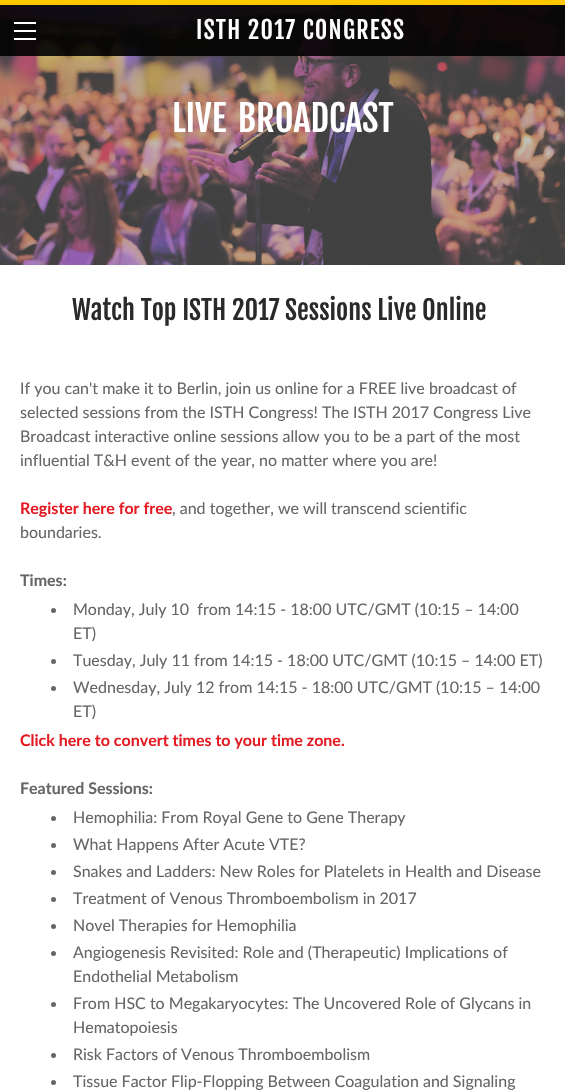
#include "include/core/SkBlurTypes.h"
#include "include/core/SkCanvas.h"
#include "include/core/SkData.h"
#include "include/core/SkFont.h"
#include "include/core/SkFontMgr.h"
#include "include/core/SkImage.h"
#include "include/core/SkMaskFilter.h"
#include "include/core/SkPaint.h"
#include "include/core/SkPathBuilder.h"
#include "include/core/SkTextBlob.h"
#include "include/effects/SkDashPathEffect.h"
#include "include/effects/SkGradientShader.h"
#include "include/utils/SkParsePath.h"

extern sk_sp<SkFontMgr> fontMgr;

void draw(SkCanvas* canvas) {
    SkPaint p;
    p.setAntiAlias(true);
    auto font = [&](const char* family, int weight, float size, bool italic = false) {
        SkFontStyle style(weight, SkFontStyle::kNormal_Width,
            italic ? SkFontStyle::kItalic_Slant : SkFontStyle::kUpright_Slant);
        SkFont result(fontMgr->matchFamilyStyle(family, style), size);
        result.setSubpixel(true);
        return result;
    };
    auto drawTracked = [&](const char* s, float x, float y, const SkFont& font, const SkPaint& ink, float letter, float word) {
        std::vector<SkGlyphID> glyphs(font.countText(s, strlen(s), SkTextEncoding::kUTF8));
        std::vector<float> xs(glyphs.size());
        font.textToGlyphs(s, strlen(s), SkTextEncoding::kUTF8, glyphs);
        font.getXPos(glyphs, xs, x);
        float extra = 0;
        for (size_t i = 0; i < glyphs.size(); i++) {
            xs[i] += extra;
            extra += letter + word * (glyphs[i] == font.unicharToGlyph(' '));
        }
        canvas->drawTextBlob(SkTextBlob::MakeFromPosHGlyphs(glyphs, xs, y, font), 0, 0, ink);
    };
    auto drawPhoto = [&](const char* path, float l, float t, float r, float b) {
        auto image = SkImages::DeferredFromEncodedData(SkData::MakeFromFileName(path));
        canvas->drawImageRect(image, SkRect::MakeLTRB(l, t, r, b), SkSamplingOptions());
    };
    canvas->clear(0xFFFFFFFF);
    drawPhoto("media/1.png", 0, 5, 565, 265);
    {
        const struct { float l, t, r, b; SkColor color; } items[] = {
            {0, 5, 565, 56, 0xE6000000},
            {0, 0, 565, 5, 0xFFFFC800},
            {14, 30, 36, 32, 0xFFFFFFFF},
            {14, 22, 36, 24, 0xFFFFFFFF},
            {14, 38, 36, 40, 0xFFFFFFFF},
        };
        for (auto [l, t, r, b, color] : items) {
            p.setColor(color);
            canvas->drawRect(SkRect::MakeLTRB(l, t, r, b), p);
        }
    }
    auto font1 = font("Fjalla One", 400, 24);
    drawTracked("ISTH 2017 CONGRESS", 196, 39, font1, p, 1.25f, 0);
    auto font2 = font("Fjalla One", 400, 36);
    drawTracked("LIVE BROADCAST", 172, 132, font2, p, 0, 4);
    auto font3 = font("Fjalla One", 400, 26.25f);
    p.setColor(0xFF2A2A2A);
    canvas->drawString("Watch Top ISTH 2017 Sessions Live Online", 72, 320, font3, p);
    auto font4 = font("Lato", 400, 16);
    p.setColor(0xFF666666);
    {
        const struct { const char* s; float x, y; } items[] = {
            {"If you can't make it to Berlin, join us online for a FREE live broadcast of", 20, 394},
            {"selected sessions from the ISTH Congress! The ISTH 2017 Congress Live", 20, 418},
            {"Broadcast interactive online sessions allow you to be a part of the most", 20, 442},
            {"influential T&H event of the year, no matter where you are!", 20, 466},
        };
        for (auto [s, x, y] : items) {
            canvas->drawString(s, x, y, font4, p);
        }
    }
    auto font5 = font("Lato", 700, 16);
    p.setColor(0xFFE31B23);
    canvas->drawString("Register here for free", 20, 514, font5, p);
    p.setColor(0xFF666666);
    canvas->drawString(", and together, we will transcend scientific", 172, 514, font4, p);
    canvas->drawString("boundaries.", 20, 538, font4, p);
    canvas->drawString("Times:", 20, 586, font5, p);
    canvas->drawCircle(53.5f, 610.5f, 2.5f, p);
    canvas->drawString("Monday, July 10  from 14:15 - 18:00 UTC/GMT (10:15 – 14:00", 73, 615, font4, p);
    canvas->drawString("ET)", 73, 639, font4, p);
    canvas->drawCircle(53.5f, 661.5f, 2.5f, p);
    canvas->drawString("Tuesday, July 11 from 14:15 - 18:00 UTC/GMT (10:15 – 14:00 ET)", 73, 666, font4, p);
    canvas->drawCircle(53.5f, 688.5f, 2.5f, p);
    canvas->drawString("Wednesday, July 12 from 14:15 - 18:00 UTC/GMT (10:15 – 14:00", 73, 693, font4, p);
    canvas->drawString("ET)", 73, 717, font4, p);
    p.setColor(0xFFE31B23);
    canvas->drawString("Click here to convert times to your time zone.", 20, 746, font5, p);
    p.setColor(0xFF666666);
    canvas->drawString("Featured Sessions:", 20, 794, font5, p);
    canvas->drawCircle(53.5f, 818.5f, 2.5f, p);
    canvas->drawString("Hemophilia: From Royal Gene to Gene Therapy", 73, 823, font4, p);
    canvas->drawCircle(53.5f, 845.5f, 2.5f, p);
    canvas->drawString("What Happens After Acute VTE?", 73, 850, font4, p);
    canvas->drawCircle(53.5f, 872.5f, 2.5f, p);
    canvas->drawString("Snakes and Ladders: New Roles for Platelets in Health and Disease", 73, 877, font4, p);
    canvas->drawCircle(53.5f, 899.5f, 2.5f, p);
    canvas->drawString("Treatment of Venous Thromboembolism in 2017", 73, 904, font4, p);
    canvas->drawCircle(53.5f, 926.5f, 2.5f, p);
    canvas->drawString("Novel Therapies for Hemophilia", 73, 931, font4, p);
    canvas->drawCircle(53.5f, 953.5f, 2.5f, p);
    canvas->drawString("Angiogenesis Revisited: Role and (Therapeutic) Implications of", 73, 958, font4, p);
    canvas->drawString("Endothelial Metabolism", 73, 982, font4, p);
    canvas->drawCircle(53.5f, 1004.5f, 2.5f, p);
    canvas->drawString("From HSC to Megakaryocytes: The Uncovered Role of Glycans in", 73, 1009, font4, p);
    canvas->drawString("Hematopoiesis", 73, 1033, font4, p);
    canvas->drawCircle(53.5f, 1055.5f, 2.5f, p);
    canvas->drawString("Risk Factors of Venous Thromboembolism", 73, 1060, font4, p);
    canvas->drawCircle(53.5f, 1082.5f, 2.5f, p);
    canvas->drawString("Tissue Factor Flip-Flopping Between Coagulation and Signaling", 73, 1087, font4, p);
}
